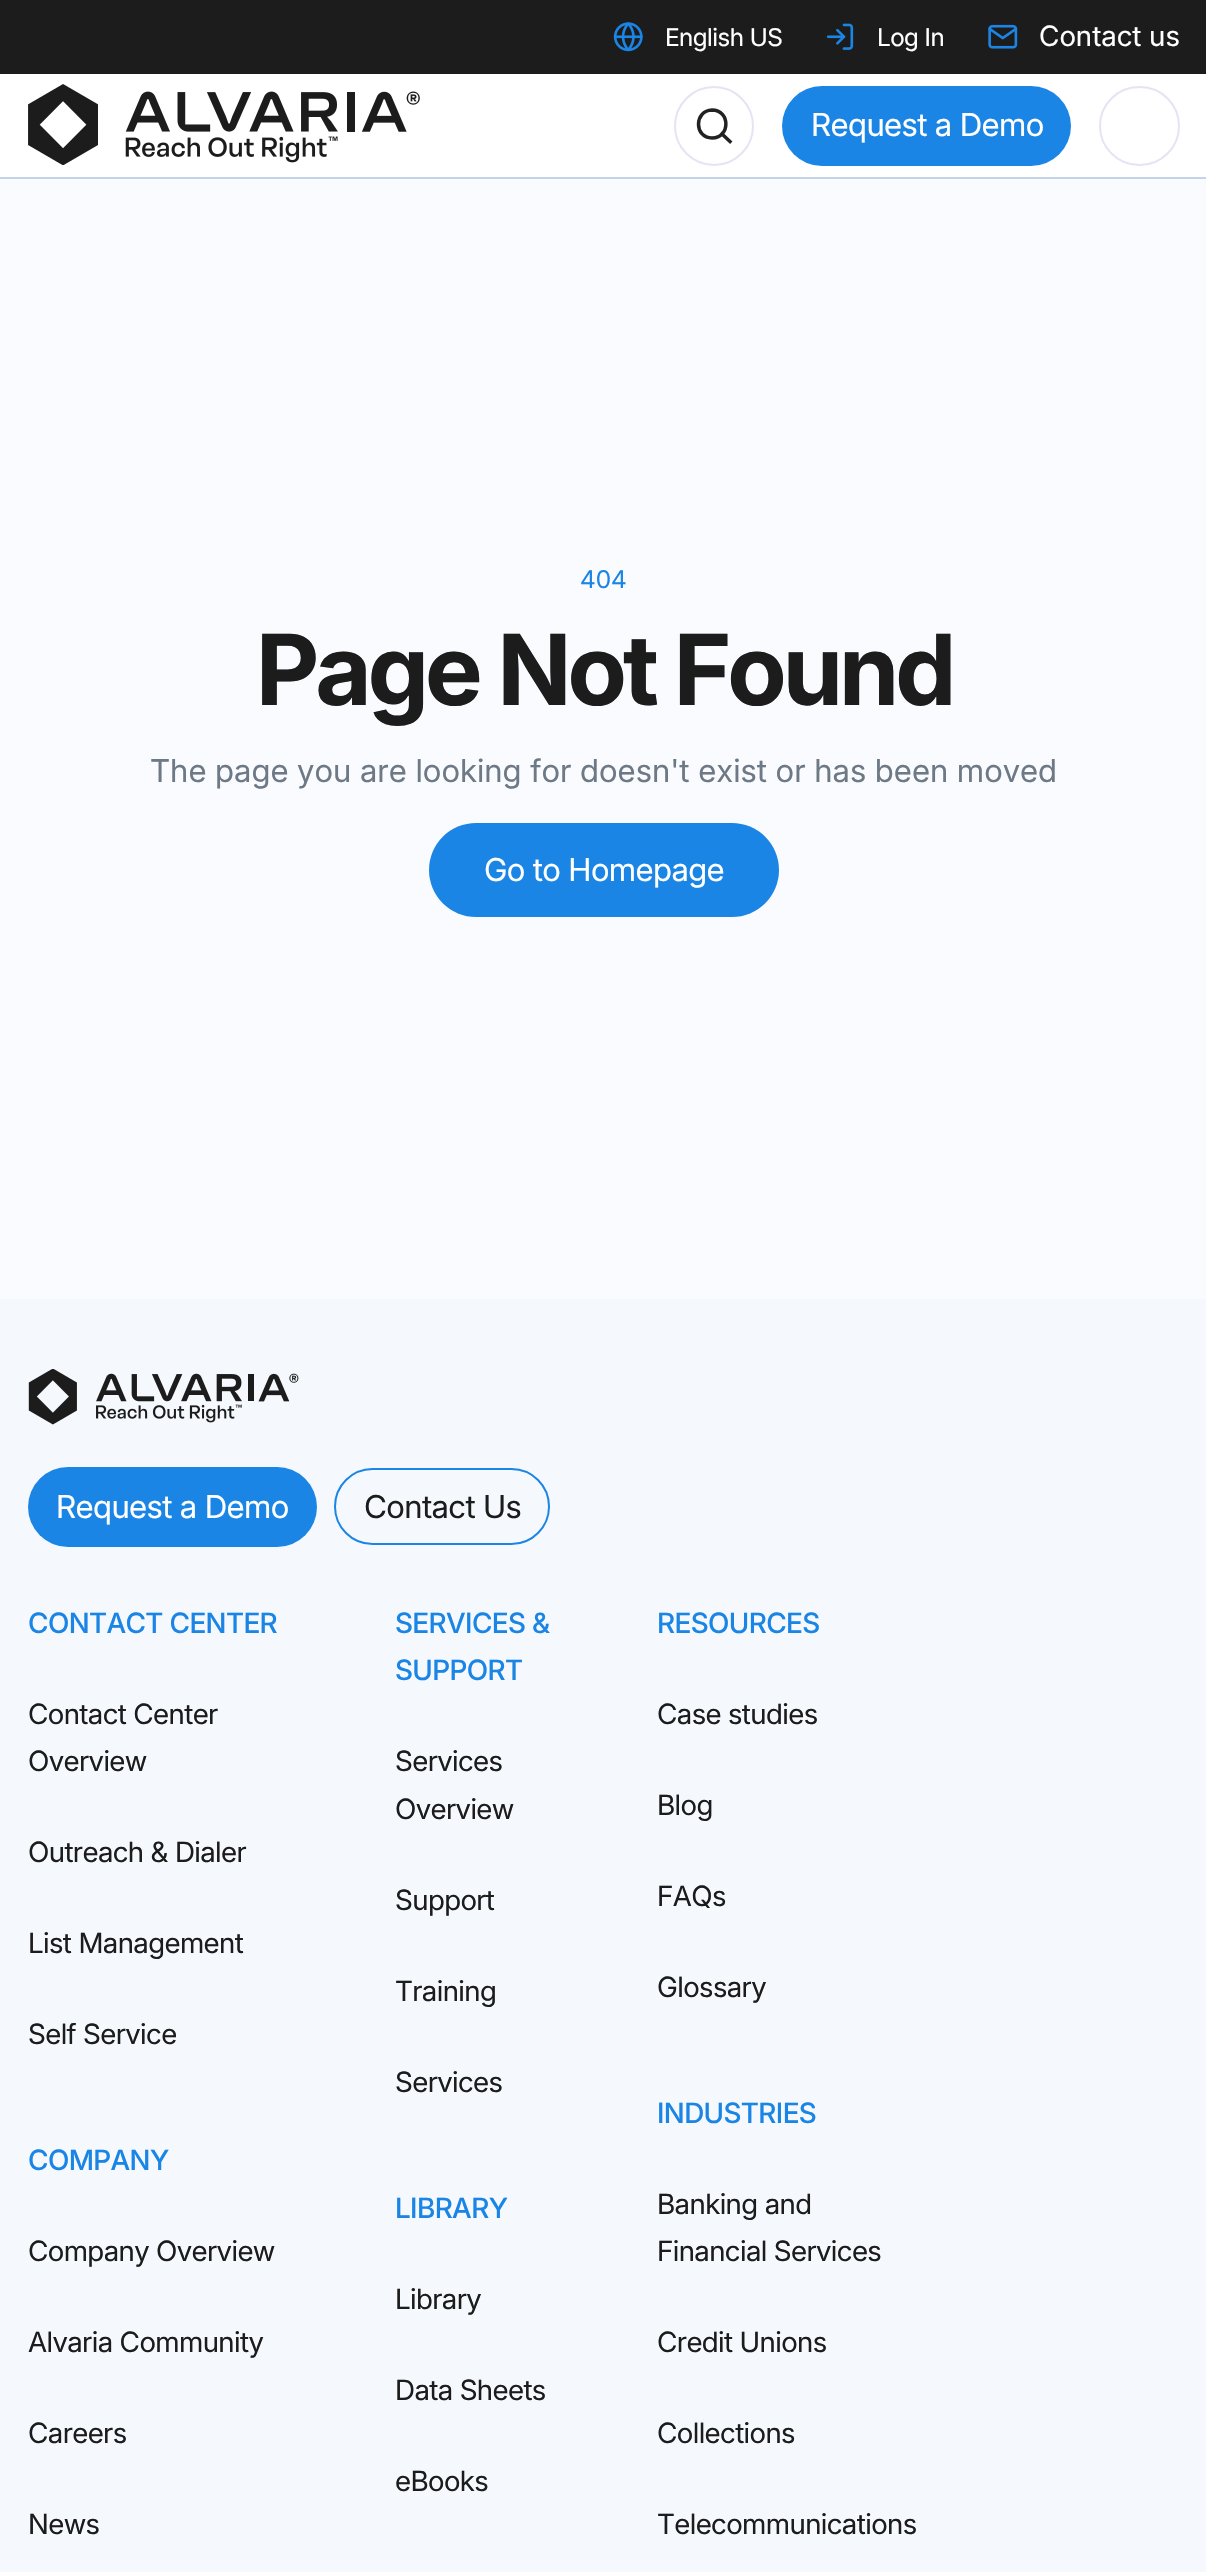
#include "include/core/SkBlurTypes.h"
#include "include/core/SkCanvas.h"
#include "include/core/SkData.h"
#include "include/core/SkFont.h"
#include "include/core/SkFontMgr.h"
#include "include/core/SkImage.h"
#include "include/core/SkMaskFilter.h"
#include "include/core/SkPaint.h"
#include "include/core/SkPathBuilder.h"
#include "include/core/SkTextBlob.h"
#include "include/effects/SkDashPathEffect.h"
#include "include/effects/SkGradientShader.h"
#include "include/utils/SkParsePath.h"

extern sk_sp<SkFontMgr> fontMgr;

void draw(SkCanvas* canvas) {
    SkPaint p;
    p.setAntiAlias(true);
    auto font = [&](const char* family, int weight, float size, bool italic = false) {
        SkFontStyle style(weight, SkFontStyle::kNormal_Width,
            italic ? SkFontStyle::kItalic_Slant : SkFontStyle::kUpright_Slant);
        SkFont result(fontMgr->matchFamilyStyle(family, style), size);
        result.setSubpixel(true);
        return result;
    };
    auto drawTracked = [&](const char* s, float x, float y, const SkFont& font, const SkPaint& ink, float letter, float word) {
        std::vector<SkGlyphID> glyphs(font.countText(s, strlen(s), SkTextEncoding::kUTF8));
        std::vector<float> xs(glyphs.size());
        font.textToGlyphs(s, strlen(s), SkTextEncoding::kUTF8, glyphs);
        font.getXPos(glyphs, xs, x);
        float extra = 0;
        for (size_t i = 0; i < glyphs.size(); i++) {
            xs[i] += extra;
            extra += letter + word * (glyphs[i] == font.unicharToGlyph(' '));
        }
        canvas->drawTextBlob(SkTextBlob::MakeFromPosHGlyphs(glyphs, xs, y, font), 0, 0, ink);
    };
    auto drawPhoto = [&](const char* path, float l, float t, float r, float b) {
        auto image = SkImages::DeferredFromEncodedData(SkData::MakeFromFileName(path));
        canvas->drawImageRect(image, SkRect::MakeLTRB(l, t, r, b), SkSamplingOptions());
    };
    canvas->clear(0xFFF9FBFF);
    p.setColor(0xFF1C1C1C);
    canvas->drawRect(SkRect::MakeLTRB(0, 0, 1206, 74), p);
    drawPhoto("media/1.png", 613, 22, 643, 52);
    auto font1 = font("Inter", 400, 24.5f);
    p.setColor(0xFFFFFFFF);
    drawTracked("English US", 665, 46, font1, p, -0.5f, 0);
    drawPhoto("media/2.png", 826, 23, 854, 50);
    drawTracked("Log In", 877, 46, font1, p, -0.5f, 0);
    drawPhoto("media/3.png", 988, 24, 1018, 49);
    auto font2 = font("Inter", 400, 28);
    canvas->drawString("Contact us", 1039, 46, font2, p);
    canvas->drawRect(SkRect::MakeLTRB(0, 74, 1206, 177), p);
    p.setColor(0xFFC2D4EA);
    canvas->drawRect(SkRect::MakeLTRB(0, 177, 1206, 179), p);
    drawPhoto("media/4.png", 28, 84, 420, 165);
    p.setStyle(SkPaint::kStroke_Style);
    p.setStrokeWidth(2);
    p.setColor(0xFFE4E4F4);
    canvas->drawCircle(714, 126, 39, p);
    p.setStrokeWidth(3.5f);
    p.setStrokeCap(SkPaint::kRound_Cap);
    p.setStrokeJoin(SkPaint::kRound_Join);
    p.setColor(0xFF222222);
    canvas->drawPath(SkPathBuilder().moveTo(712, 138).cubicTo(730.5f, 138, 730.5f, 110, 712, 110).cubicTo(694, 110.5f, 694, 138, 712, 138).close().detach(), p);
    p.setStrokeCap(SkPaint::kSquare_Cap);
    canvas->drawPath(SkPathBuilder().moveTo(730, 141.5f).lineTo(722, 134).detach(), p);
    p.setStyle(SkPaint::kFill_Style);
    p.setColor(0xFF1A85E5);
    canvas->drawRoundRect(SkRect::MakeLTRB(782, 86, 1071, 166), 40, 40, p);
    auto font3 = font("Inter", 400, 31.5f);
    p.setColor(0xFFFFFFFF);
    drawTracked("Request a Demo", 811, 136, font3, p, -0.6f, 0);
    p.setStyle(SkPaint::kStroke_Style);
    p.setStrokeWidth(2);
    p.setStrokeCap(SkPaint::kButt_Cap);
    p.setStrokeJoin(SkPaint::kMiter_Join);
    p.setColor(0xFFE4E4F4);
    canvas->drawRoundRect(SkRect::MakeLTRB(1100, 87, 1179, 165), 39, 39, p);
    p.setStyle(SkPaint::kFill_Style);
    p.setColor(0xFF1A85E5);
    canvas->drawString("404", 580, 588, font1, p);
    auto font4 = font("Inter", 700, 98);
    p.setColor(0xFF1C1C1C);
    drawTracked("Page Not Found", 256, 705, font4, p, -3.9f, 0);
    p.setColor(0xFF6E7986);
    canvas->drawString("The page you are looking for doesn't exist or has been moved", 150, 782, font3, p);
    p.setColor(0xFF1A85E5);
    canvas->drawRoundRect(SkRect::MakeLTRB(429, 823, 779, 917), 47, 47, p);
    p.setColor(0xFFFFFFFF);
    drawTracked("Go to Homepage", 484, 881, font3, p, -0.6f, 0);
    p.setColor(0xFFF5F9FE);
    canvas->drawRect(SkRect::MakeLTRB(0, 1299, 1206, 2572), p);
    drawPhoto("media/5.png", 28, 1369, 299, 1425);
    p.setColor(0xFF1A85E5);
    canvas->drawRoundRect(SkRect::MakeLTRB(28, 1467, 317, 1547), 40, 40, p);
    p.setColor(0xFFFFFFFF);
    drawTracked("Request a Demo", 56, 1518, font3, p, -0.6f, 0);
    p.setStyle(SkPaint::kStroke_Style);
    p.setColor(0xFF1A85E5);
    canvas->drawRoundRect(SkRect::MakeLTRB(335, 1469, 549, 1544), 37.5f, 37.5f, p);
    p.setStyle(SkPaint::kFill_Style);
    p.setColor(0xFF1C1C1C);
    drawTracked("Contact Us", 364, 1518, font3, p, -0.6f, 0);
    auto font5 = font("Inter", 500, 28);
    p.setColor(0xFF1A85E5);
    drawTracked("CONTACT CENTER", 28, 1633, font5, p, -0.6f, 0);
    p.setColor(0xFF1C1C1C);
    {
        const struct { const char* s; float x, y; } items[] = {
            {"Contact Center", 28, 1724},
            {"Overview", 28, 1771},
            {"Outreach & Dialer", 28, 1862},
            {"List Management", 28, 1953},
            {"Self Service", 28, 2044},
        };
        for (auto [s, x, y] : items) {
            drawTracked(s, x, y, font2, p, -0.6f, 0);
        }
    }
    p.setColor(0xFF1A85E5);
    drawTracked("COMPANY", 28, 2170, font5, p, -0.6f, 0);
    p.setColor(0xFF1C1C1C);
    {
        const struct { const char* s; float x, y; } items[] = {
            {"Company Overview", 28, 2261},
            {"Alvaria Community", 28, 2352},
            {"Careers", 28, 2443},
            {"News", 28, 2534},
        };
        for (auto [s, x, y] : items) {
            drawTracked(s, x, y, font2, p, -0.6f, 0);
        }
    }
    p.setColor(0xFF1A85E5);
    drawTracked("SERVICES &", 395, 1633, font5, p, -0.6f, 0);
    drawTracked("SUPPORT", 395, 1680, font5, p, -0.6f, 0);
    p.setColor(0xFF1C1C1C);
    {
        const struct { const char* s; float x, y; } items[] = {
            {"Services", 395, 1771},
            {"Overview", 395, 1819},
            {"Support", 395, 1910},
            {"Training", 395, 2001},
            {"Services", 395, 2092},
        };
        for (auto [s, x, y] : items) {
            drawTracked(s, x, y, font2, p, -0.6f, 0);
        }
    }
    p.setColor(0xFF1A85E5);
    drawTracked("LIBRARY", 395, 2218, font5, p, -0.6f, 0);
    p.setColor(0xFF1C1C1C);
    {
        const struct { const char* s; float x, y; } items[] = {
            {"Library", 395, 2309},
            {"Data Sheets", 395, 2400},
            {"eBooks", 395, 2491},
        };
        for (auto [s, x, y] : items) {
            drawTracked(s, x, y, font2, p, -0.6f, 0);
        }
    }
    p.setColor(0xFF1A85E5);
    drawTracked("RESOURCES", 657, 1633, font5, p, -0.6f, 0);
    p.setColor(0xFF1C1C1C);
    {
        const struct { const char* s; float x, y; } items[] = {
            {"Case studies", 657, 1724},
            {"Blog", 657, 1815},
            {"FAQs", 657, 1906},
            {"Glossary", 657, 1997},
        };
        for (auto [s, x, y] : items) {
            drawTracked(s, x, y, font2, p, -0.6f, 0);
        }
    }
    p.setColor(0xFF1A85E5);
    drawTracked("INDUSTRIES", 657, 2123, font5, p, -0.6f, 0);
    p.setColor(0xFF1C1C1C);
    {
        const struct { const char* s; float x, y; } items[] = {
            {"Banking and", 657, 2214},
            {"Financial Services", 657, 2261},
            {"Credit Unions", 657, 2352},
            {"Collections", 657, 2443},
            {"Telecommunications", 657, 2534},
        };
        for (auto [s, x, y] : items) {
            drawTracked(s, x, y, font2, p, -0.6f, 0);
        }
    }
}
